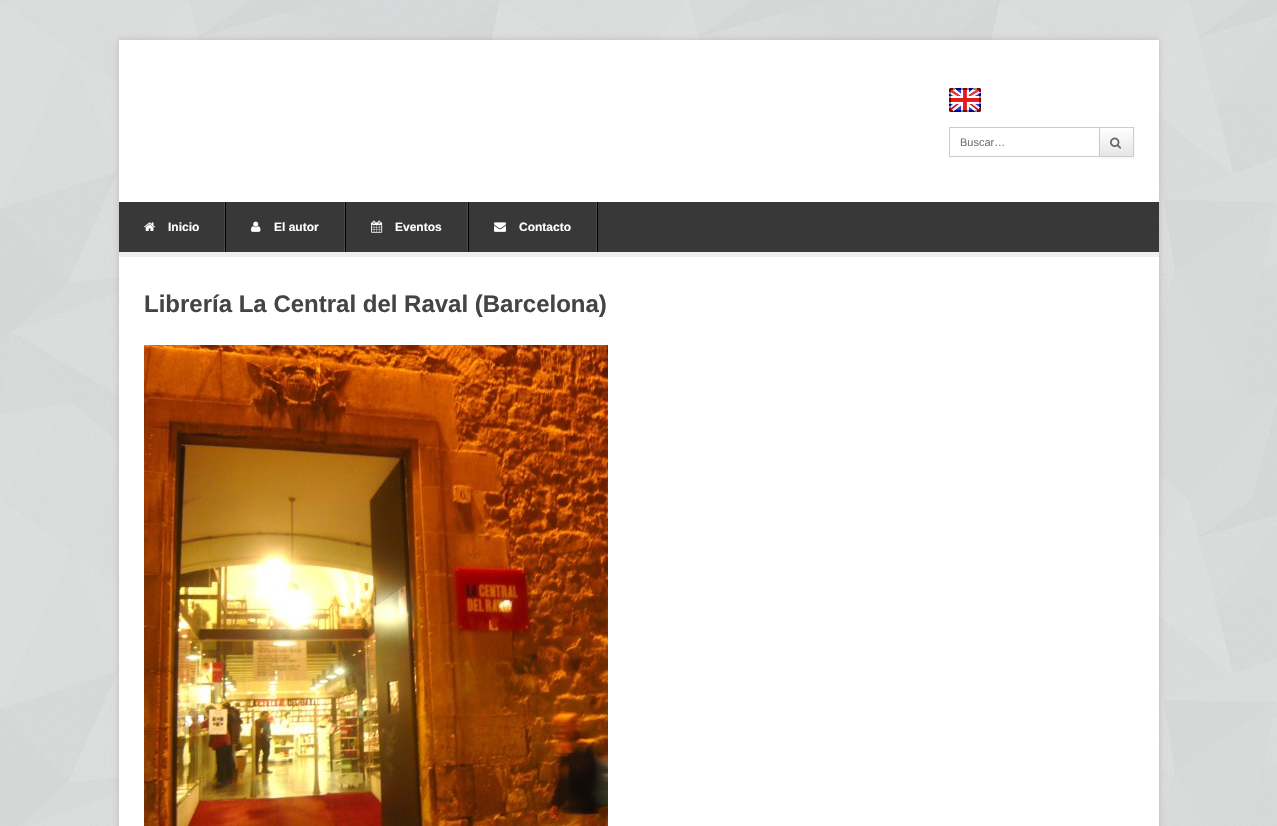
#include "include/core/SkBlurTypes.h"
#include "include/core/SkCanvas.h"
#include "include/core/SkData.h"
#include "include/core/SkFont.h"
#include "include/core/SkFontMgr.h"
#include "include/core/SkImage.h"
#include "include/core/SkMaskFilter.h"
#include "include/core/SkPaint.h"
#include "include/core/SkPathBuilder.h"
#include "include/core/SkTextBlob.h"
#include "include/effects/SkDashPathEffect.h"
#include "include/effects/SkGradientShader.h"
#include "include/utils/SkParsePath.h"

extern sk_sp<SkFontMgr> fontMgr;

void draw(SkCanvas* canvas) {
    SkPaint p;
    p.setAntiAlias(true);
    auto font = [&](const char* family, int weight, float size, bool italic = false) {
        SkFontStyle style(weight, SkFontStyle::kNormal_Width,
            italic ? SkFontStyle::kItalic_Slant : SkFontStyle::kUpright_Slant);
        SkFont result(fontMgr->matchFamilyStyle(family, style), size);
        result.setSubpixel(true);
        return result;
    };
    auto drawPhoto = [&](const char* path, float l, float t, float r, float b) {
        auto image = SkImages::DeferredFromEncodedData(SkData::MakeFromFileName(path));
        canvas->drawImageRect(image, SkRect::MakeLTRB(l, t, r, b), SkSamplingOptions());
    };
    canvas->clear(0xFFFFFFFF);
    drawPhoto("media/1.png", 0, 0, 1277, 826);
    p.setColor(0x26000000);
    p.setMaskFilter(SkMaskFilter::MakeBlur(kNormal_SkBlurStyle, 3));
    canvas->drawRect(SkRect::MakeLTRB(119, 40, 1159, 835), p);
    p.setMaskFilter(nullptr);
    p.setColor(0xFFFFFFFF);
    canvas->drawRect(SkRect::MakeLTRB(119, 40, 1159, 826), p);
    drawPhoto("media/2.png", 949, 88, 981, 112);
    {
        const struct { float l, t, r, b; SkColor color; } items[] = {
            {949, 127, 1099, 128, 0xFFCCCCCC},
            {949, 156, 1099, 157, 0xFFCCCCCC},
            {949, 127, 950, 157, 0xFFCCCCCC},
        };
        for (auto [l, t, r, b, color] : items) {
            p.setColor(color);
            canvas->drawRect(SkRect::MakeLTRB(l, t, r, b), p);
        }
    }
    auto font1 = font("Liberation Sans", 400, 11);
    p.setColor(0xFF757575);
    canvas->drawString("Buscar…", 960, 146, font1, p);
    p.setColor(0x0D000000);
    p.setMaskFilter(SkMaskFilter::MakeBlur(kNormal_SkBlurStyle, 1));
    canvas->drawRect(SkRect::MakeLTRB(1099, 128, 1134, 158), p);
    p.setMaskFilter(nullptr);
    {
        const SkColor colors[] = {0xFFFFFFFF, 0xFFE6E6E6};
        const float stops[] = {0, 1};
        const SkPoint ends[] = {{1117, 128}, {1117, 156}};
        p.setShader(SkGradientShader::MakeLinear(ends, colors, stops, 2, SkTileMode::kClamp));
        p.setAlpha(255);
    }
    canvas->drawRect(SkRect::MakeLTRB(1100, 128, 1133, 156), p);
    p.setStyle(SkPaint::kStroke_Style);
    p.setStrokeWidth(1);
    p.setShader(nullptr);
    p.setColor(0xFFCCCCCC);
    canvas->drawRect(SkRect::MakeLTRB(1099.5f, 127.5f, 1133.5f, 156.5f), p);
    drawPhoto("media/3.png", 1110, 137, 1122, 149);
    p.setStyle(SkPaint::kFill_Style);
    {
        const struct { float l, t, r, b; SkColor color; } items[] = {
            {119, 202, 1159, 252, 0xFF383838},
            {119, 252, 1159, 257, 0xFFEEEEEE},
            {597, 202, 598, 252, 0xFF000000},
            {224, 202, 225, 252, 0xFF4C4C4C},
        };
        for (auto [l, t, r, b, color] : items) {
            p.setColor(color);
            canvas->drawRect(SkRect::MakeLTRB(l, t, r, b), p);
        }
    }
    drawPhoto("media/4.png", 144, 222, 155, 231);
    auto font2 = font("Liberation Sans", 700, 12);
    p.setColor(0xFFFFFFFF);
    canvas->drawString("Inicio", 168, 231, font2, p);
    p.setColor(0xFF4C4C4C);
    canvas->drawRect(SkRect::MakeLTRB(344, 202, 345, 252), p);
    p.setColor(0xFF000000);
    canvas->drawRect(SkRect::MakeLTRB(225, 202, 226, 252), p);
    drawPhoto("media/5.png", 251, 221, 261, 232);
    p.setColor(0xFFFFFFFF);
    canvas->drawString("El autor", 274, 231, font2, p);
    p.setColor(0xFF4C4C4C);
    canvas->drawRect(SkRect::MakeLTRB(467, 202, 468, 252), p);
    p.setColor(0xFF000000);
    canvas->drawRect(SkRect::MakeLTRB(345, 202, 346, 252), p);
    drawPhoto("media/6.png", 371, 220, 383, 233);
    p.setColor(0xFFFFFFFF);
    canvas->drawString("Eventos", 395, 231, font2, p);
    p.setColor(0xFF4C4C4C);
    canvas->drawRect(SkRect::MakeLTRB(596, 202, 597, 252), p);
    p.setColor(0xFF000000);
    canvas->drawRect(SkRect::MakeLTRB(468, 202, 469, 252), p);
    drawPhoto("media/7.png", 494, 222, 506, 232);
    p.setColor(0xFFFFFFFF);
    canvas->drawString("Contacto", 519, 231, font2, p);
    auto font3 = font("Liberation Sans", 700, 24);
    p.setColor(0xFF444444);
    canvas->drawString("Librería La Central del Raval (Barcelona)", 144, 312, font3, p);
    drawPhoto("media/8.png", 144, 345, 608, 826);
}
